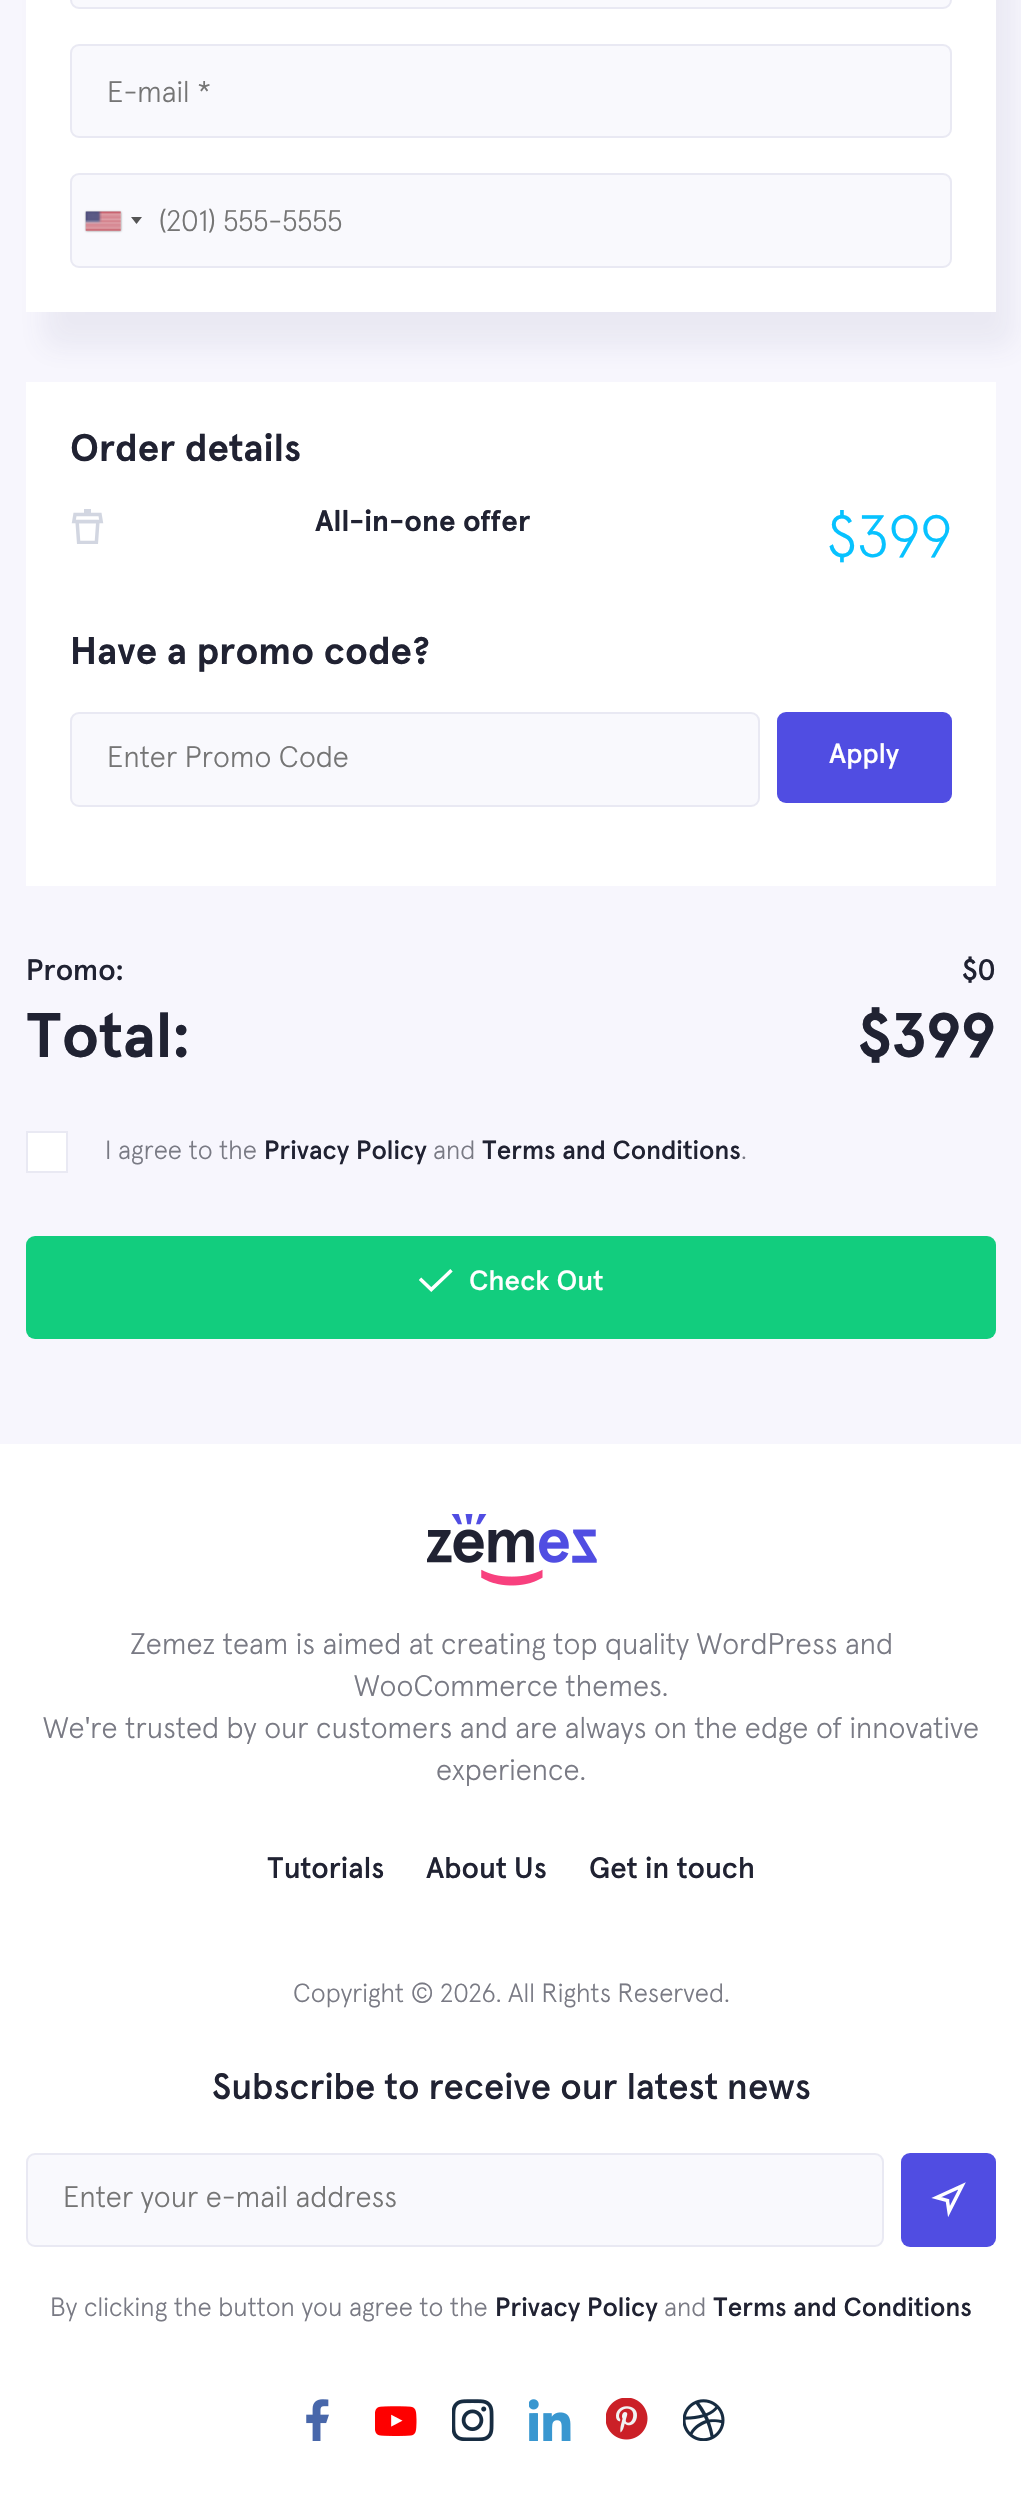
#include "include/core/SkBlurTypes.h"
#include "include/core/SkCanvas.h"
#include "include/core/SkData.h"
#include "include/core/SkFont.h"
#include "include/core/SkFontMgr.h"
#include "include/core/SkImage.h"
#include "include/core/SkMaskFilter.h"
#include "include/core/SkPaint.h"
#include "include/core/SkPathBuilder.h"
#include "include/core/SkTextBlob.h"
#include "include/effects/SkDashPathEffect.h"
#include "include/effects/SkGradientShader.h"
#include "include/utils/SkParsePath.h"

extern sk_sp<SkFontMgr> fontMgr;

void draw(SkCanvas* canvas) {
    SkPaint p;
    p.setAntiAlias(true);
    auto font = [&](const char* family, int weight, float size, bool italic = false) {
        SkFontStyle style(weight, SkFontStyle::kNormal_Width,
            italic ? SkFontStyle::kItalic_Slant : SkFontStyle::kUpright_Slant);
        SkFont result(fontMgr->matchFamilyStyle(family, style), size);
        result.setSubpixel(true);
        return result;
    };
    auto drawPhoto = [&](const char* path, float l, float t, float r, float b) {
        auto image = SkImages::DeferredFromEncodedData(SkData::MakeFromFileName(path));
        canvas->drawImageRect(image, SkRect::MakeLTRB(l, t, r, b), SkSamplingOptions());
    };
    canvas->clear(0xFFF7F6FD);
    p.setColor(0x144D527A);
    p.setMaskFilter(SkMaskFilter::MakeBlur(kNormal_SkBlurStyle, 13));
    canvas->drawRect(SkRect::MakeLTRB(44, -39, 1013, 347), p);
    p.setMaskFilter(nullptr);
    p.setColor(0xFFFFFFFF);
    canvas->drawRect(SkRect::MakeLTRB(26, 0, 996, 312), p);
    p.setColor(0xFFF9F9FD);
    canvas->drawRoundRect(SkRect::MakeLTRB(71, -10, 951, 8), 8, 8, p);
    p.setStyle(SkPaint::kStroke_Style);
    p.setStrokeWidth(2);
    p.setColor(0xFFE9E9F3);
    canvas->drawRoundRect(SkRect::MakeLTRB(71, -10, 951, 8), 8, 8, p);
    p.setStyle(SkPaint::kFill_Style);
    p.setColor(0xFFF9F9FD);
    canvas->drawRoundRect(SkRect::MakeLTRB(71, 45, 951, 137), 8, 8, p);
    p.setStyle(SkPaint::kStroke_Style);
    p.setColor(0xFFE9E9F3);
    canvas->drawRoundRect(SkRect::MakeLTRB(71, 45, 951, 137), 8, 8, p);
    auto font1 = font("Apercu", 300, 29.75f);
    p.setStyle(SkPaint::kFill_Style);
    p.setColor(0xFF757575);
    canvas->drawString("E-mail *", 107, 102, font1, p);
    p.setColor(0xFFF9F9FD);
    canvas->drawRoundRect(SkRect::MakeLTRB(71, 174, 951, 267), 8, 8, p);
    p.setStyle(SkPaint::kStroke_Style);
    p.setColor(0xFFE9E9F3);
    canvas->drawRoundRect(SkRect::MakeLTRB(71, 174, 951, 267), 8, 8, p);
    p.setStyle(SkPaint::kFill_Style);
    p.setColor(0xFF888888);
    p.setMaskFilter(SkMaskFilter::MakeBlur(kNormal_SkBlurStyle, 1));
    canvas->drawRect(SkRect::MakeLTRB(86, 212, 121, 231), p);
    p.setMaskFilter(nullptr);
    p.setColor(0xFFDBDBDB);
    canvas->drawRect(SkRect::MakeLTRB(86, 212, 121, 231), p);
    drawPhoto("media/1.png", 85, 211, 121, 231);
    p.setColor(0xFF555555);
    canvas->drawPath(SkPathBuilder().moveTo(131, 217).lineTo(142, 217).lineTo(136.5f, 224).close().detach(), p);
    p.setColor(0xFF757575);
    canvas->drawString("(201) 555-5555", 159, 231, font1, p);
    p.setColor(0xFFFFFFFF);
    canvas->drawRect(SkRect::MakeLTRB(26, 382, 996, 886), p);
    auto font2 = font("Apercu", 700, 38.5f);
    p.setColor(0xFF202232);
    canvas->drawString("Order details", 70, 461, font2, p);
    drawPhoto("media/2.png", 71, 509, 104, 544);
    auto font3 = font("Apercu", 700, 29.75f);
    canvas->drawString("All-in-one offer", 315, 531, font3, p);
    auto font4 = font("Apercu", 300, 59.5f);
    p.setColor(0xFF07C2FF);
    canvas->drawString("$399", 827, 557, font4, p);
    p.setColor(0xFF202232);
    canvas->drawString("Have a promo code?", 70, 664, font2, p);
    p.setColor(0xFFF9F9FD);
    canvas->drawRoundRect(SkRect::MakeLTRB(71, 713, 759, 806), 8, 8, p);
    p.setStyle(SkPaint::kStroke_Style);
    p.setColor(0xFFE9E9F3);
    canvas->drawRoundRect(SkRect::MakeLTRB(71, 713, 759, 806), 8, 8, p);
    p.setStyle(SkPaint::kFill_Style);
    p.setColor(0xFF757575);
    canvas->drawString("Enter Promo Code", 107, 767, font1, p);
    p.setColor(0xFF504DE2);
    canvas->drawRoundRect(SkRect::MakeLTRB(777, 712, 952, 803), 9, 9, p);
    auto font5 = font("Apercu", 500, 28);
    p.setColor(0xFFFFFFFF);
    canvas->drawString("Apply", 829, 763, font5, p);
    auto font6 = font("Apercu", 500, 29.75f);
    p.setColor(0xFF202232);
    canvas->drawString("Promo:", 26, 980, font6, p);
    canvas->drawString("$0", 962, 980, font6, p);
    auto font7 = font("Apercu", 700, 63);
    canvas->drawString("Total:", 26, 1057, font7, p);
    canvas->drawString("$399", 858, 1057, font7, p);
    p.setColor(0xFFFFFFFF);
    canvas->drawRect(SkRect::MakeLTRB(27, 1132, 67, 1172), p);
    p.setStyle(SkPaint::kStroke_Style);
    p.setColor(0xFFE9E9F3);
    canvas->drawRect(SkRect::MakeLTRB(27, 1132, 67, 1172), p);
    auto font8 = font("Apercu", 300, 26.25f);
    p.setStyle(SkPaint::kFill_Style);
    p.setColor(0xFF797A84);
    canvas->drawString("I agree to the", 105, 1159, font8, p);
    auto font9 = font("Apercu", 500, 26.25f);
    p.setColor(0xFF202232);
    canvas->drawString("Privacy Policy", 264, 1159, font9, p);
    p.setColor(0xFF797A84);
    canvas->drawString("and", 433, 1159, font8, p);
    p.setColor(0xFF202232);
    canvas->drawString("Terms and Conditions", 482, 1159, font9, p);
    p.setColor(0xFF797A84);
    canvas->drawString(".", 741, 1159, font8, p);
    p.setColor(0xFF12CD7E);
    canvas->drawRoundRect(SkRect::MakeLTRB(26, 1236, 996, 1339), 9, 9, p);
    drawPhoto("media/3.png", 419, 1269, 453, 1292);
    p.setColor(0xFFFFFFFF);
    canvas->drawString("Check Out", 469, 1290, font5, p);
    canvas->drawRect(SkRect::MakeLTRB(0, 1444, 1021, 2515), p);
    drawPhoto("media/4.png", 427, 1514, 597, 1586);
    p.setColor(0xFF797A84);
    {
        const struct { const char* s; float x, y; } items[] = {
            {"Zemez team is aimed at creating top quality WordPress and", 130, 1654},
            {"WooCommerce themes.", 354, 1696},
            {"We're trusted by our customers and are always on the edge of innovative", 43, 1738},
            {"experience.", 436, 1780},
        };
        for (auto [s, x, y] : items) {
            canvas->drawString(s, x, y, font1, p);
        }
    }
    p.setColor(0xFF202232);
    {
        const struct { const char* s; float x, y; } items[] = {
            {"Tutorials", 267, 1878},
            {"About Us", 426, 1878},
            {"Get in touch", 589, 1878},
        };
        for (auto [s, x, y] : items) {
            canvas->drawString(s, x, y, font6, p);
        }
    }
    p.setColor(0xFF797A84);
    canvas->drawString("Copyright © 2026. All Rights Reserved.", 293, 2002, font8, p);
    auto font10 = font("Apercu", 500, 36.75f);
    p.setColor(0xFF202232);
    canvas->drawString("Subscribe to receive our latest news", 212, 2099, font10, p);
    p.setColor(0xFFF9F9FD);
    canvas->drawRoundRect(SkRect::MakeLTRB(27, 2154, 883, 2246), 8, 8, p);
    p.setStyle(SkPaint::kStroke_Style);
    p.setColor(0xFFE9E9F3);
    canvas->drawRoundRect(SkRect::MakeLTRB(27, 2154, 883, 2246), 8, 8, p);
    p.setStyle(SkPaint::kFill_Style);
    p.setColor(0xFF757575);
    canvas->drawString("Enter your e-mail address", 63, 2207, font1, p);
    p.setColor(0xFF504DE2);
    canvas->drawRoundRect(SkRect::MakeLTRB(901, 2153, 996, 2247), 9, 9, p);
    p.setStyle(SkPaint::kStroke_Style);
    p.setStrokeWidth(3.5f);
    p.setColor(0xFFFFFFFF);
    canvas->drawPath(SkPathBuilder().moveTo(947.5f, 2201.5f).lineTo(947.5f, 2200.5f).lineTo(936.5f, 2197.5f).lineTo(962, 2186).lineTo(949, 2211.5f).close().detach(), p);
    p.setStyle(SkPaint::kFill_Style);
    p.setColor(0xFF797A84);
    canvas->drawString("By clicking the button you agree to the", 50, 2316, font8, p);
    p.setColor(0xFF202232);
    canvas->drawString("Privacy Policy", 495, 2316, font9, p);
    p.setColor(0xFF797A84);
    canvas->drawString("and", 664, 2316, font8, p);
    p.setColor(0xFF202232);
    canvas->drawString("Terms and Conditions", 713, 2316, font9, p);
    drawPhoto("media/5.png", 306, 2399, 329, 2441);
    drawPhoto("media/6.png", 375, 2406, 417, 2436);
    drawPhoto("media/7.png", 452, 2399, 494, 2441);
    drawPhoto("media/8.png", 529, 2399, 571, 2441);
    drawPhoto("media/9.png", 606, 2398, 648, 2440);
    drawPhoto("media/10.png", 683, 2399, 725, 2441);
}
